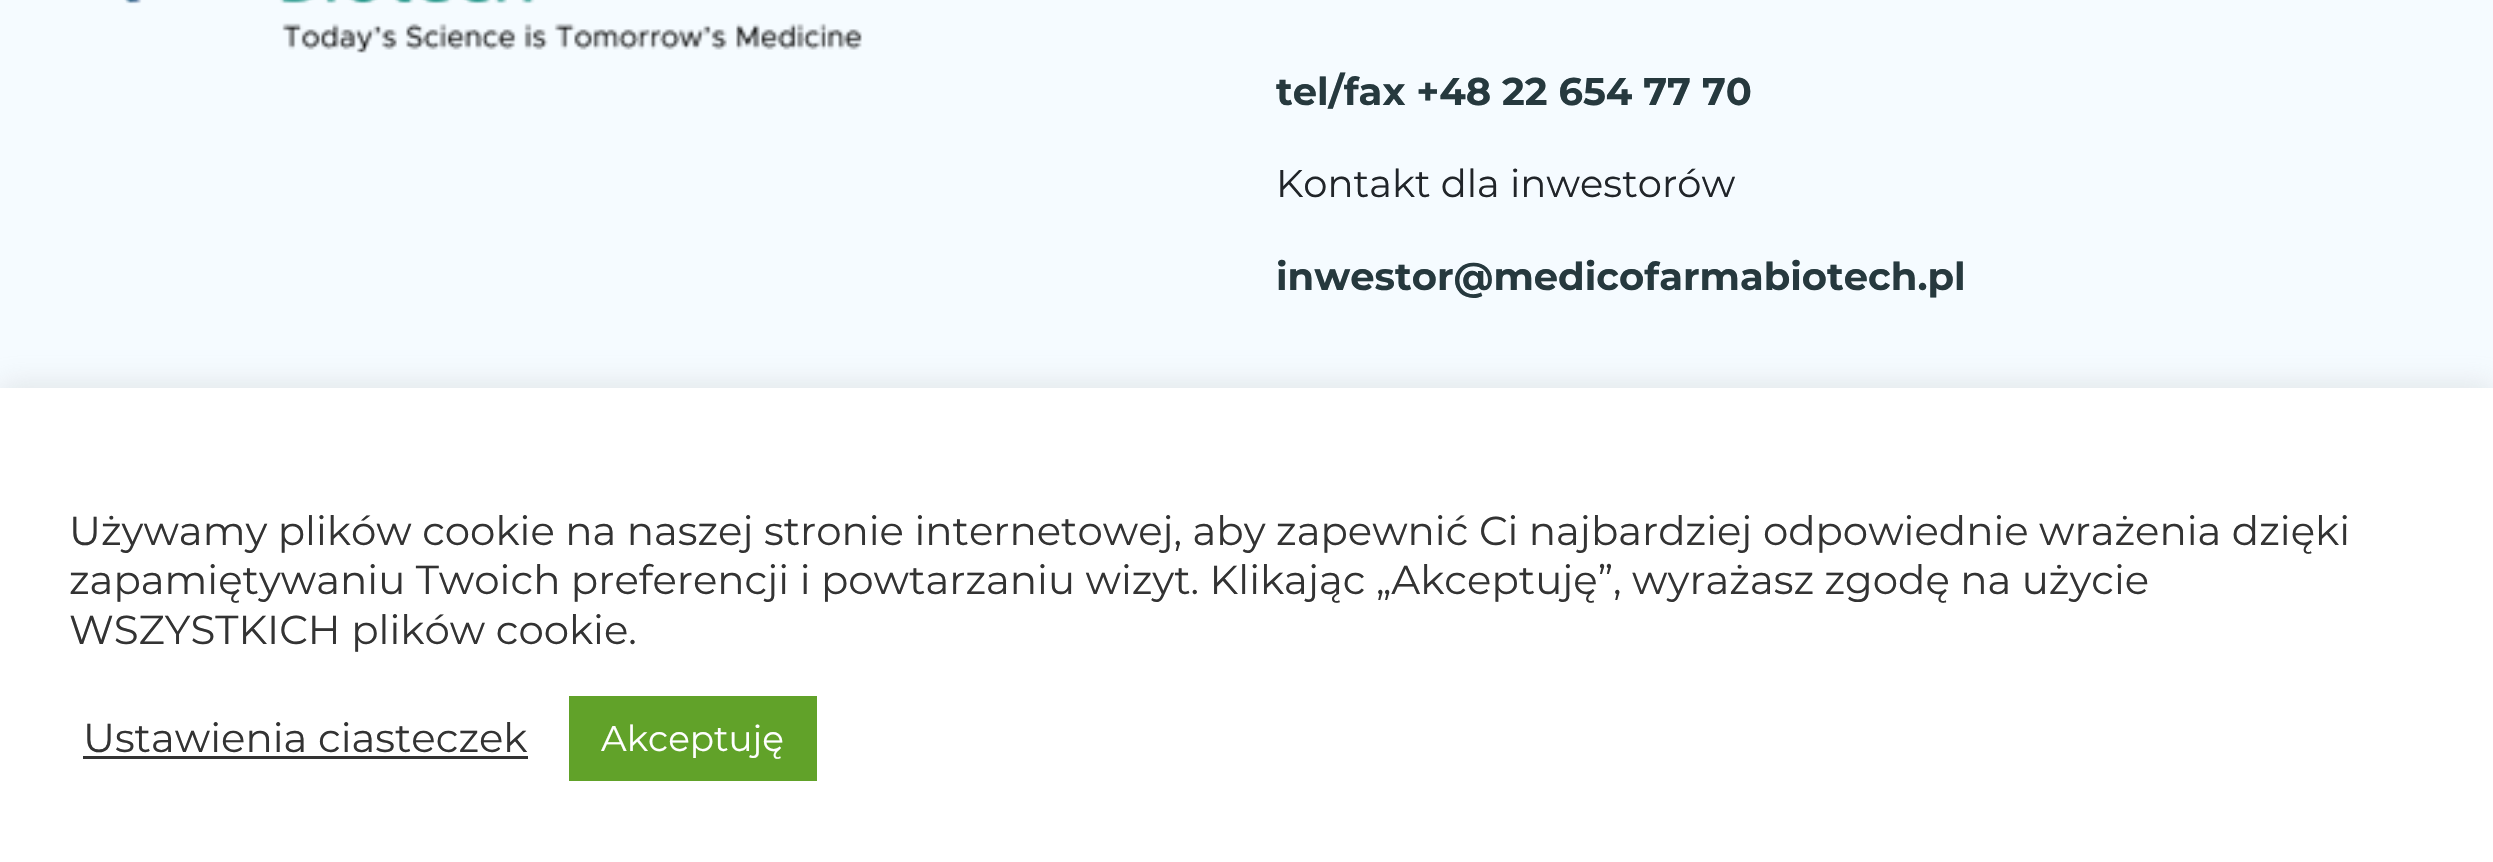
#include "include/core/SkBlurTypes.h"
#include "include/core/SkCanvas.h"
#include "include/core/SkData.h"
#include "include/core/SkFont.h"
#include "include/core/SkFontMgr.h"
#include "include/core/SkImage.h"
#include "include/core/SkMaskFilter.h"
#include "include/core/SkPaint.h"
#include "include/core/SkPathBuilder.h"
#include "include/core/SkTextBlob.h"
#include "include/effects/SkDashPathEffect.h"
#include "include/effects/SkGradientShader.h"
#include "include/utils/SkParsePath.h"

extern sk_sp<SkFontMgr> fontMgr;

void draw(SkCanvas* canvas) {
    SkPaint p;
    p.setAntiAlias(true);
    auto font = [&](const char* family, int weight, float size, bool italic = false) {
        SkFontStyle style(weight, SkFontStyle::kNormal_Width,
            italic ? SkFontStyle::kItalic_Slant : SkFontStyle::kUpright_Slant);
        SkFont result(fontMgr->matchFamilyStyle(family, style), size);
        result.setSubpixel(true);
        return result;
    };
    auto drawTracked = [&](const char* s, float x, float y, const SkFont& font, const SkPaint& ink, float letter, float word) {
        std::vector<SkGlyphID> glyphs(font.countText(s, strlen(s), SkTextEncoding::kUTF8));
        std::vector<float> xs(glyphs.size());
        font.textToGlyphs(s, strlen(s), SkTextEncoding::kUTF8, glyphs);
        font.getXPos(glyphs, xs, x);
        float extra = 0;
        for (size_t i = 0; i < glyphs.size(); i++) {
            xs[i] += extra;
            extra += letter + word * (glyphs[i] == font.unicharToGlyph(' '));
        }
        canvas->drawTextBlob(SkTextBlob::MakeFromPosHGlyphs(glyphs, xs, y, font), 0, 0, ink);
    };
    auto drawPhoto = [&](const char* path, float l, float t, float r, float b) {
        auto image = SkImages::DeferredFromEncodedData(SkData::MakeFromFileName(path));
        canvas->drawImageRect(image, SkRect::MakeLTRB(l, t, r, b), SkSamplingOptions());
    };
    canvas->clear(0xFFF5FBFF);
    drawPhoto("media/1.png", 124, 0, 862, 53);
    auto font1 = font("Montserrat", 700, 38.5f);
    p.setColor(0xFF26393E);
    canvas->drawString("tel/fax +48 22 654 77 70", 1276, 105, font1, p);
    auto font2 = font("Montserrat", 400, 38.5f);
    p.setColor(0xFF212529);
    canvas->drawString("Kontakt dla inwestorów", 1276, 197, font2, p);
    p.setColor(0xFF26393E);
    canvas->drawString("inwestor@medicofarmabiotech.pl", 1276, 290, font1, p);
    p.setColor(0x4DACABAB);
    p.setMaskFilter(SkMaskFilter::MakeBlur(kNormal_SkBlurStyle, 14));
    canvas->drawRect(SkRect::MakeLTRB(0, 385, 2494, 861), p);
    p.setMaskFilter(nullptr);
    p.setColor(0xFFFFFFFF);
    canvas->drawRect(SkRect::MakeLTRB(0, 388, 2493, 862), p);
    auto font3 = font("Montserrat", 400, 40.33f);
    p.setColor(0xFF333333);
    drawTracked("Używamy plików cookie na naszej stronie internetowej, aby zapewnić Ci najbardziej odpowiednie wrażenia dzięki", 69, 545, font3, p, 0, -0.1f);
    drawTracked("zapamiętywaniu Twoich preferencji i powtarzaniu wizyt. Klikając „Akceptuję”, wyrażasz zgodę na użycie", 69, 594, font3, p, 0, -0.1f);
    canvas->drawString("WSZYSTKICH plików cookie.", 69, 644, font3, p);
    canvas->drawString("Ustawienia ciasteczek", 83, 752, font3, p);
    canvas->drawRect(SkRect::MakeLTRB(83, 756, 528, 759), p);
    p.setColor(0xFF61A229);
    canvas->drawRect(SkRect::MakeLTRB(569, 696, 817, 781), p);
    auto font4 = font("Montserrat", 400, 35.75f);
    p.setColor(0xFFFFFFFF);
    canvas->drawString("Akceptuję", 601, 751, font4, p);
}
